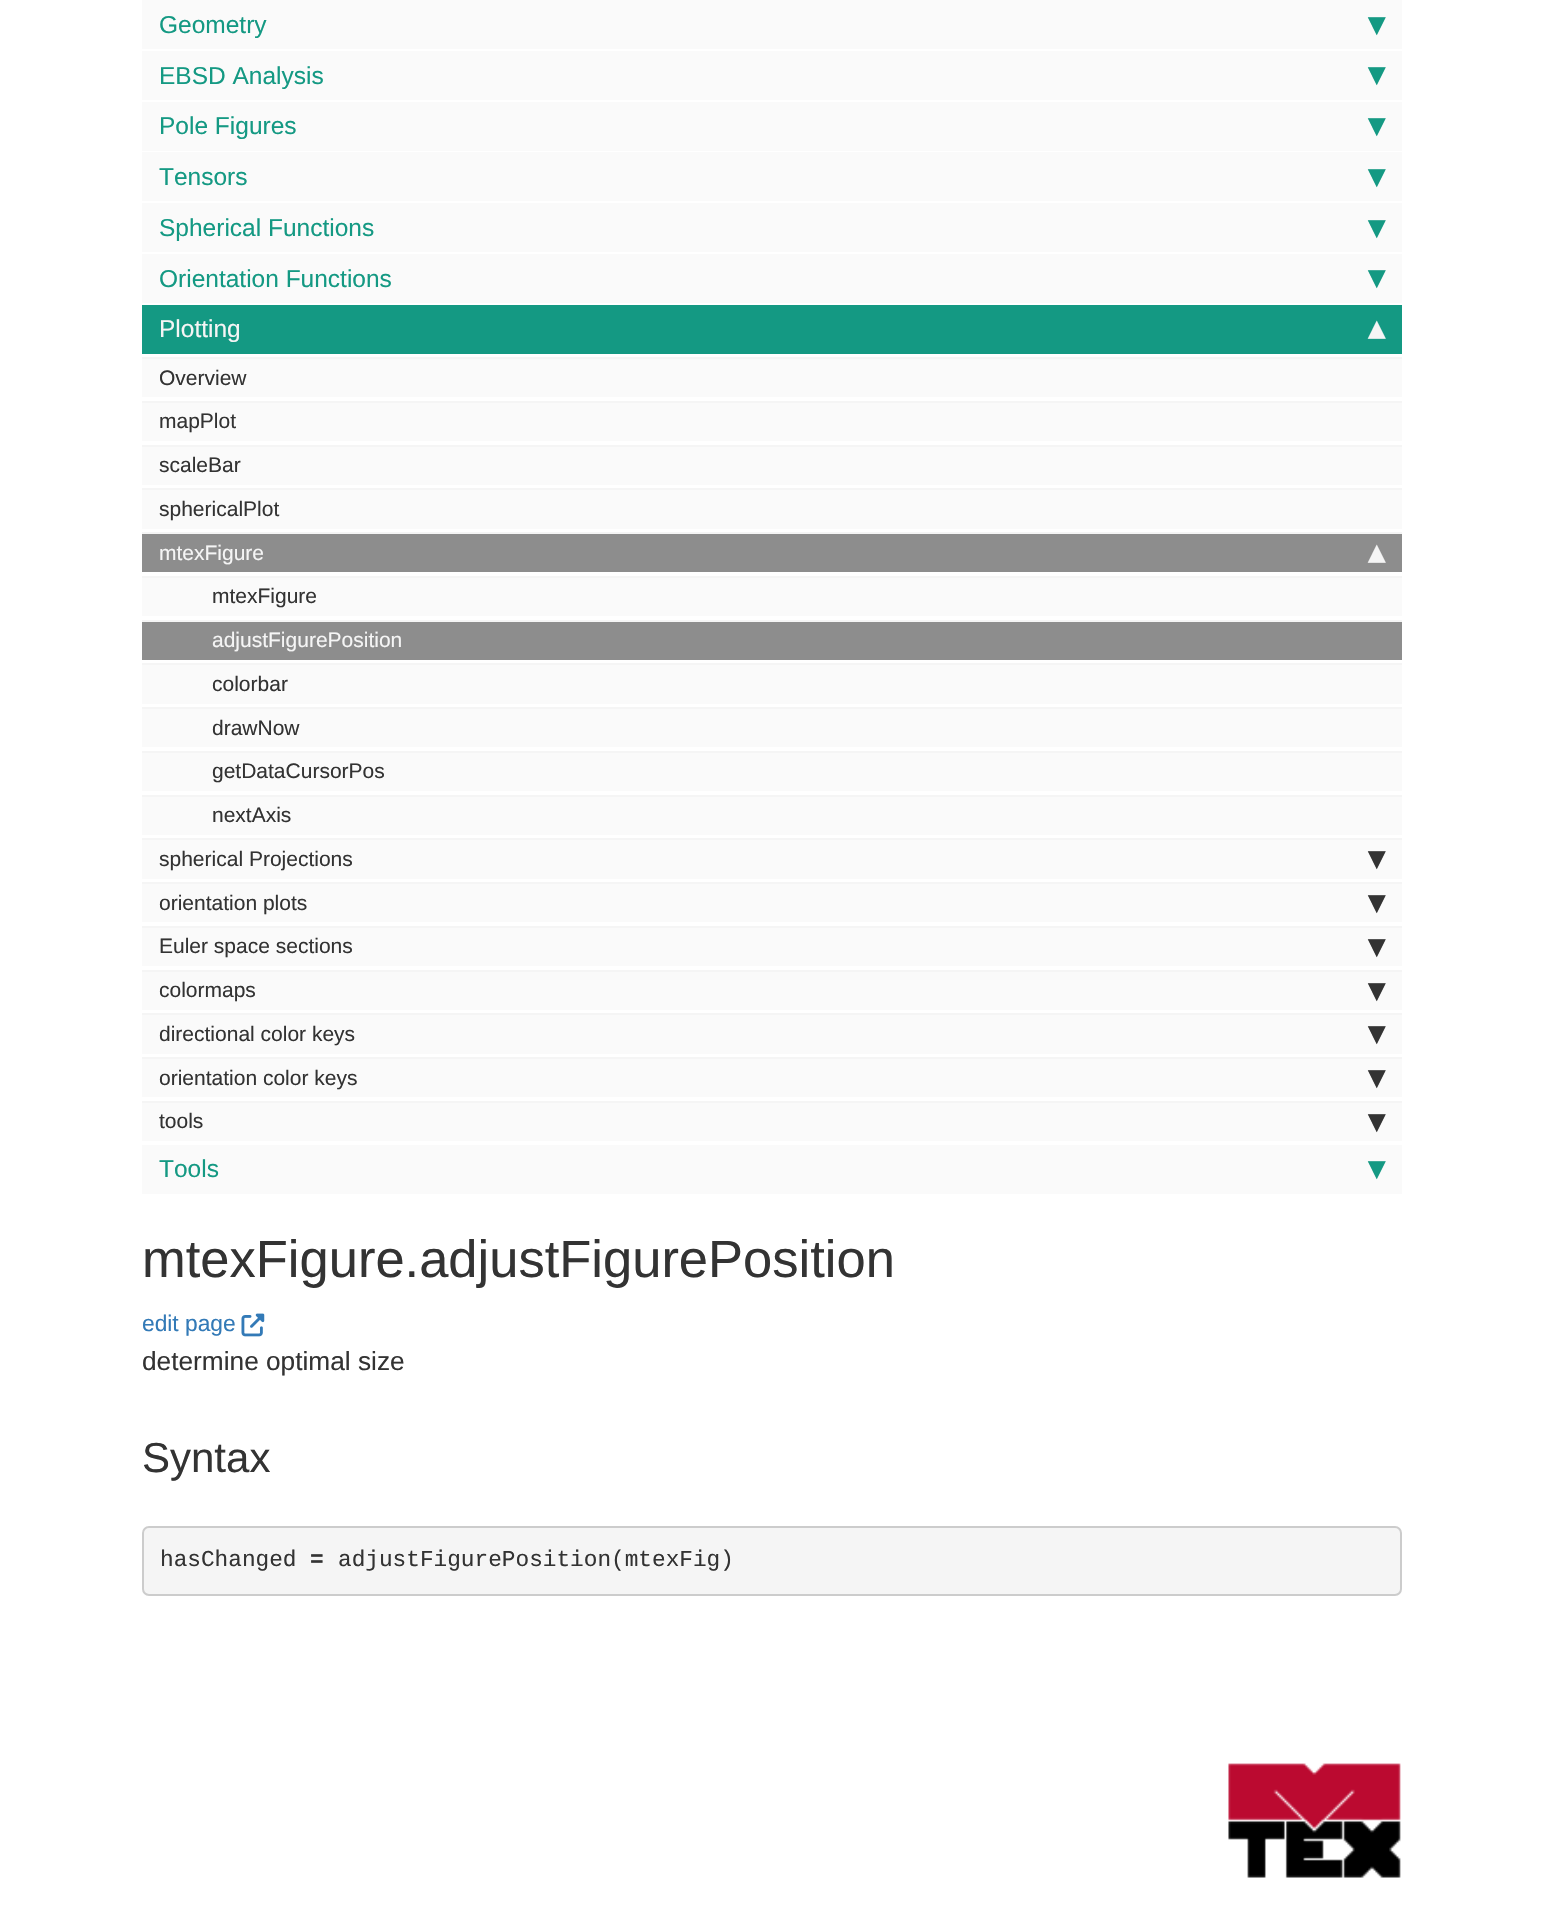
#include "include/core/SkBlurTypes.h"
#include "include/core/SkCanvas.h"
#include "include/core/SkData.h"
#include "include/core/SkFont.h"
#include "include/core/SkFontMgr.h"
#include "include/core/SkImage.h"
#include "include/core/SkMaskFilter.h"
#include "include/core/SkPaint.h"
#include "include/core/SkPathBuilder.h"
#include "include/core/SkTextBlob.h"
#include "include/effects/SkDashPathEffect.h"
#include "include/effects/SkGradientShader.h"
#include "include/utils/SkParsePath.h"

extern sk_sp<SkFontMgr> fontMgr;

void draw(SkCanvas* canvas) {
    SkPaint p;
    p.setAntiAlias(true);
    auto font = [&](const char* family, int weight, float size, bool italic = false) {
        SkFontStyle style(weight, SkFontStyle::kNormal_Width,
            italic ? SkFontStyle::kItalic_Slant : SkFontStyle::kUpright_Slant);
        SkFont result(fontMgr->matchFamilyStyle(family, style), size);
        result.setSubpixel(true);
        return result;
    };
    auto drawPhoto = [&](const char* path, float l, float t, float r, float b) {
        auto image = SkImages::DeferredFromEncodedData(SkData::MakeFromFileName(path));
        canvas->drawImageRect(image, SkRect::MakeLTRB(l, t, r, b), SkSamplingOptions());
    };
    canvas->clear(0xFFFFFFFF);
    p.setColor(0xFFFAFAFA);
    canvas->drawRect(SkRect::MakeLTRB(142, 0, 1402, 49), p);
    auto font1 = font("Liberation Sans", 400, 24.5f);
    p.setColor(0xFF149983);
    canvas->drawString("Geometry", 159, 33, font1, p);
    auto font2 = font("DejaVu Sans", 700, 33);
    canvas->drawString("▾", 1368, 35, font2, p);
    p.setColor(0xFFFAFAFA);
    canvas->drawRect(SkRect::MakeLTRB(142, 51, 1402, 100), p);
    p.setColor(0xFF149983);
    canvas->drawString("EBSD Analysis", 159, 84, font1, p);
    canvas->drawString("▾", 1368, 85, font2, p);
    p.setColor(0xFFFAFAFA);
    canvas->drawRect(SkRect::MakeLTRB(142, 102, 1402, 151), p);
    p.setColor(0xFF149983);
    canvas->drawString("Pole Figures", 159, 134, font1, p);
    canvas->drawString("▾", 1368, 136, font2, p);
    p.setColor(0xFFFAFAFA);
    canvas->drawRect(SkRect::MakeLTRB(142, 152, 1402, 201), p);
    p.setColor(0xFF149983);
    canvas->drawString("Tensors", 159, 185, font1, p);
    canvas->drawString("▾", 1368, 187, font2, p);
    p.setColor(0xFFFAFAFA);
    canvas->drawRect(SkRect::MakeLTRB(142, 203, 1402, 252), p);
    p.setColor(0xFF149983);
    canvas->drawString("Spherical Functions", 159, 236, font1, p);
    canvas->drawString("▾", 1368, 238, font2, p);
    p.setColor(0xFFFAFAFA);
    canvas->drawRect(SkRect::MakeLTRB(142, 254, 1402, 303), p);
    p.setColor(0xFF149983);
    canvas->drawString("Orientation Functions", 159, 287, font1, p);
    canvas->drawString("▾", 1368, 288, font2, p);
    canvas->drawRect(SkRect::MakeLTRB(142, 305, 1402, 354), p);
    p.setColor(0xFFF5F5F5);
    canvas->drawString("Plotting", 159, 337, font1, p);
    canvas->drawString("▴", 1368, 339, font2, p);
    p.setColor(0xFFFAFAFA);
    canvas->drawRect(SkRect::MakeLTRB(142, 359, 1402, 397), p);
    p.setColor(0xFFF5F5F5);
    canvas->drawRect(SkRect::MakeLTRB(142, 357, 1402, 359), p);
    auto font3 = font("Liberation Sans", 400, 21);
    p.setColor(0xFF333333);
    canvas->drawString("Overview", 159, 385, font3, p);
    p.setColor(0xFFFAFAFA);
    canvas->drawRect(SkRect::MakeLTRB(142, 403, 1402, 441), p);
    p.setColor(0xFFF5F5F5);
    canvas->drawRect(SkRect::MakeLTRB(142, 401, 1402, 403), p);
    p.setColor(0xFF333333);
    canvas->drawString("mapPlot", 159, 428, font3, p);
    p.setColor(0xFFFAFAFA);
    canvas->drawRect(SkRect::MakeLTRB(142, 447, 1402, 485), p);
    p.setColor(0xFFF5F5F5);
    canvas->drawRect(SkRect::MakeLTRB(142, 445, 1402, 447), p);
    p.setColor(0xFF333333);
    canvas->drawString("scaleBar", 159, 472, font3, p);
    p.setColor(0xFFFAFAFA);
    canvas->drawRect(SkRect::MakeLTRB(142, 490, 1402, 529), p);
    p.setColor(0xFFF5F5F5);
    canvas->drawRect(SkRect::MakeLTRB(142, 488, 1402, 490), p);
    p.setColor(0xFF333333);
    canvas->drawString("sphericalPlot", 159, 516, font3, p);
    p.setColor(0xFF8D8D8D);
    canvas->drawRect(SkRect::MakeLTRB(142, 534, 1402, 572), p);
    p.setColor(0xFFF5F5F5);
    canvas->drawRect(SkRect::MakeLTRB(142, 532, 1402, 534), p);
    canvas->drawString("mtexFigure", 159, 560, font3, p);
    canvas->drawString("▴", 1368, 563, font2, p);
    p.setColor(0xFFFAFAFA);
    canvas->drawRect(SkRect::MakeLTRB(142, 578, 1402, 616), p);
    p.setColor(0xFFF5F5F5);
    canvas->drawRect(SkRect::MakeLTRB(142, 576, 1402, 578), p);
    p.setColor(0xFF333333);
    canvas->drawString("mtexFigure", 212, 603, font3, p);
    p.setColor(0xFF8D8D8D);
    canvas->drawRect(SkRect::MakeLTRB(142, 622, 1402, 660), p);
    p.setColor(0xFFF5F5F5);
    canvas->drawRect(SkRect::MakeLTRB(142, 620, 1402, 622), p);
    canvas->drawString("adjustFigurePosition", 212, 647, font3, p);
    p.setColor(0xFFFAFAFA);
    canvas->drawRect(SkRect::MakeLTRB(142, 665, 1402, 704), p);
    p.setColor(0xFFF5F5F5);
    canvas->drawRect(SkRect::MakeLTRB(142, 663, 1402, 665), p);
    p.setColor(0xFF333333);
    canvas->drawString("colorbar", 212, 691, font3, p);
    p.setColor(0xFFFAFAFA);
    canvas->drawRect(SkRect::MakeLTRB(142, 709, 1402, 747), p);
    p.setColor(0xFFF5F5F5);
    canvas->drawRect(SkRect::MakeLTRB(142, 707, 1402, 709), p);
    p.setColor(0xFF333333);
    canvas->drawString("drawNow", 212, 735, font3, p);
    p.setColor(0xFFFAFAFA);
    canvas->drawRect(SkRect::MakeLTRB(142, 753, 1402, 791), p);
    p.setColor(0xFFF5F5F5);
    canvas->drawRect(SkRect::MakeLTRB(142, 751, 1402, 753), p);
    p.setColor(0xFF333333);
    canvas->drawString("getDataCursorPos", 212, 778, font3, p);
    p.setColor(0xFFFAFAFA);
    canvas->drawRect(SkRect::MakeLTRB(142, 797, 1402, 835), p);
    p.setColor(0xFFF5F5F5);
    canvas->drawRect(SkRect::MakeLTRB(142, 795, 1402, 797), p);
    p.setColor(0xFF333333);
    canvas->drawString("nextAxis", 212, 822, font3, p);
    p.setColor(0xFFFAFAFA);
    canvas->drawRect(SkRect::MakeLTRB(142, 840, 1402, 879), p);
    p.setColor(0xFFF5F5F5);
    canvas->drawRect(SkRect::MakeLTRB(142, 838, 1402, 840), p);
    p.setColor(0xFF333333);
    canvas->drawString("spherical Projections", 159, 866, font3, p);
    canvas->drawString("▾", 1368, 869, font2, p);
    p.setColor(0xFFFAFAFA);
    canvas->drawRect(SkRect::MakeLTRB(142, 884, 1402, 922), p);
    p.setColor(0xFFF5F5F5);
    canvas->drawRect(SkRect::MakeLTRB(142, 882, 1402, 884), p);
    p.setColor(0xFF333333);
    canvas->drawString("orientation plots", 159, 910, font3, p);
    canvas->drawString("▾", 1368, 913, font2, p);
    p.setColor(0xFFFAFAFA);
    canvas->drawRect(SkRect::MakeLTRB(142, 928, 1402, 966), p);
    p.setColor(0xFFF5F5F5);
    canvas->drawRect(SkRect::MakeLTRB(142, 926, 1402, 928), p);
    p.setColor(0xFF333333);
    canvas->drawString("Euler space sections", 159, 953, font3, p);
    canvas->drawString("▾", 1368, 957, font2, p);
    p.setColor(0xFFFAFAFA);
    canvas->drawRect(SkRect::MakeLTRB(142, 972, 1402, 1010), p);
    p.setColor(0xFFF5F5F5);
    canvas->drawRect(SkRect::MakeLTRB(142, 970, 1402, 972), p);
    p.setColor(0xFF333333);
    canvas->drawString("colormaps", 159, 997, font3, p);
    canvas->drawString("▾", 1368, 1001, font2, p);
    p.setColor(0xFFFAFAFA);
    canvas->drawRect(SkRect::MakeLTRB(142, 1015, 1402, 1054), p);
    p.setColor(0xFFF5F5F5);
    canvas->drawRect(SkRect::MakeLTRB(142, 1013, 1402, 1015), p);
    p.setColor(0xFF333333);
    canvas->drawString("directional color keys", 159, 1041, font3, p);
    canvas->drawString("▾", 1368, 1044, font2, p);
    p.setColor(0xFFFAFAFA);
    canvas->drawRect(SkRect::MakeLTRB(142, 1059, 1402, 1097), p);
    p.setColor(0xFFF5F5F5);
    canvas->drawRect(SkRect::MakeLTRB(142, 1057, 1402, 1059), p);
    p.setColor(0xFF333333);
    canvas->drawString("orientation color keys", 159, 1085, font3, p);
    canvas->drawString("▾", 1368, 1088, font2, p);
    p.setColor(0xFFFAFAFA);
    canvas->drawRect(SkRect::MakeLTRB(142, 1103, 1402, 1141), p);
    p.setColor(0xFFF5F5F5);
    canvas->drawRect(SkRect::MakeLTRB(142, 1101, 1402, 1103), p);
    p.setColor(0xFF333333);
    canvas->drawString("tools", 159, 1128, font3, p);
    canvas->drawString("▾", 1368, 1132, font2, p);
    p.setColor(0xFFFAFAFA);
    canvas->drawRect(SkRect::MakeLTRB(142, 1145, 1402, 1194), p);
    p.setColor(0xFF149983);
    canvas->drawString("Tools", 159, 1177, font1, p);
    canvas->drawString("▾", 1368, 1179, font2, p);
    auto font4 = font("Liberation Sans", 400, 52.5f);
    p.setColor(0xFF333333);
    canvas->drawString("mtexFigure.adjustFigurePosition", 142, 1277, font4, p);
    auto font5 = font("Liberation Sans", 400, 22.75f);
    p.setColor(0xFF337AB7);
    canvas->drawString("edit page", 142, 1331, font5, p);
    drawPhoto("media/1.png", 241, 1313, 265, 1337);
    auto font6 = font("Liberation Sans", 400, 26.25f);
    p.setColor(0xFF333333);
    canvas->drawString("determine optimal size", 142, 1370, font6, p);
    auto font7 = font("Liberation Sans", 400, 42);
    canvas->drawString("Syntax", 142, 1472, font7, p);
    p.setColor(0xFFF5F5F5);
    canvas->drawRoundRect(SkRect::MakeLTRB(143, 1527, 1401, 1595), 6, 6, p);
    p.setStyle(SkPaint::kStroke_Style);
    p.setStrokeWidth(2);
    p.setColor(0xFFCCCCCC);
    canvas->drawRoundRect(SkRect::MakeLTRB(143, 1527, 1401, 1595), 6, 6, p);
    auto font8 = font("Liberation Mono", 400, 22.75f);
    p.setStyle(SkPaint::kFill_Style);
    p.setColor(0xFF333333);
    canvas->drawString("hasChanged", 160, 1566, font8, p);
    auto font9 = font("Liberation Mono", 700, 22.75f);
    canvas->drawString("=", 310, 1566, font9, p);
    canvas->drawString("adjustFigurePosition(mtexFig)", 338, 1566, font8, p);
    drawPhoto("media/2.png", 1228, 1763, 1401, 1878);
}
